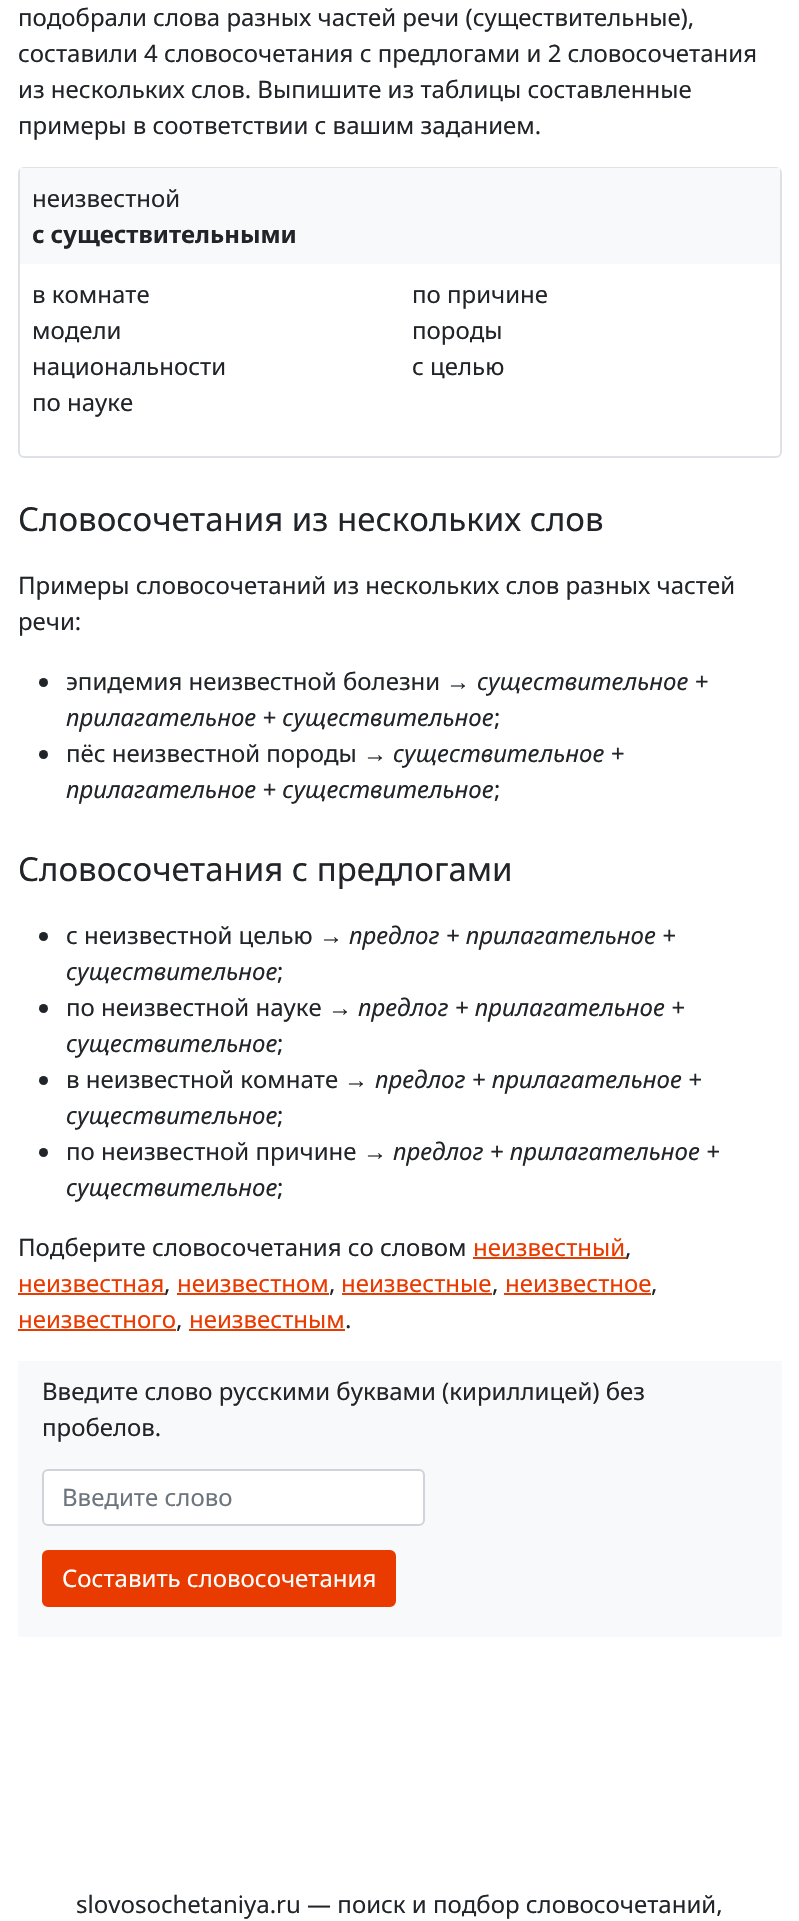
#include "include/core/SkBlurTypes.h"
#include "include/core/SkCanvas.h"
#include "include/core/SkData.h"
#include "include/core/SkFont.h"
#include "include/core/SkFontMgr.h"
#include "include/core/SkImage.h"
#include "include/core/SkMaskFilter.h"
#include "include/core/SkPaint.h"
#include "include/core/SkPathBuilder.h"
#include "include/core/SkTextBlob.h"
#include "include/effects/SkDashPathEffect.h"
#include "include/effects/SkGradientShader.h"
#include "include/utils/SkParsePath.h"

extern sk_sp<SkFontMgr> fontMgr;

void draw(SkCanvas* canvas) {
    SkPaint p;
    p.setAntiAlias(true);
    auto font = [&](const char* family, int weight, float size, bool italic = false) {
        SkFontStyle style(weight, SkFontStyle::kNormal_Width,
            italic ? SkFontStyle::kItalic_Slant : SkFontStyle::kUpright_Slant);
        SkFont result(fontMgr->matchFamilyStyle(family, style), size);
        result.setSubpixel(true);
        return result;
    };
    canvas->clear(0xFFFFFFFF);
    auto font1 = font("Noto Sans", 400, 24);
    p.setColor(0xFF212529);
    {
        const struct { const char* s; float x, y; } items[] = {
            {"подобрали слова разных частей речи (существительные),", 18, 26},
            {"составили 4 словосочетания с предлогами и 2 словосочетания", 18, 62},
            {"из нескольких слов. Выпишите из таблицы составленные", 18, 98},
            {"примеры в соответствии с вашим заданием.", 18, 134},
        };
        for (auto [s, x, y] : items) {
            canvas->drawString(s, x, y, font1, p);
        }
    }
    p.setStyle(SkPaint::kStroke_Style);
    p.setStrokeWidth(2);
    p.setColor(0xFFDEE2E6);
    canvas->drawRoundRect(SkRect::MakeLTRB(19, 168, 781, 457), 5, 5, p);
    p.setStyle(SkPaint::kFill_Style);
    p.setColor(0xFFF8F9FA);
    canvas->drawRect(SkRect::MakeLTRB(20, 168, 780, 264), p);
    p.setColor(0xFF212529);
    canvas->drawString("неизвестной", 32, 207, font1, p);
    auto font2 = font("Noto Sans", 700, 24);
    canvas->drawString("c существительными", 32, 243, font2, p);
    {
        const struct { const char* s; float x, y; } items[] = {
            {"в комнате", 32, 303},
            {"по причине", 412, 303},
            {"модели", 32, 339},
            {"породы", 412, 339},
            {"национальности", 32, 375},
            {"с целью", 412, 375},
            {"по науке", 32, 411},
        };
        for (auto [s, x, y] : items) {
            canvas->drawString(s, x, y, font1, p);
        }
    }
    auto font3 = font("Noto Sans", 400, 33);
    canvas->drawString("Словосочетания из нескольких слов", 18, 531, font3, p);
    canvas->drawString("Примеры словосочетаний из нескольких слов разных частей", 18, 594, font1, p);
    canvas->drawString("речи:", 18, 630, font1, p);
    canvas->drawCircle(43.5f, 682.5f, 4.5f, p);
    canvas->drawString("эпидемия неизвестной болезни", 66, 690, font1, p);
    auto font4 = font("Liberation Sans", 400, 24, true);
    canvas->drawString("→", 446, 690, font4, p);
    auto font5 = font("Noto Sans", 400, 24, true);
    canvas->drawString("существительное +", 477, 690, font5, p);
    canvas->drawString("прилагательное + существительное", 66, 726, font5, p);
    canvas->drawString(";", 494, 726, font1, p);
    canvas->drawCircle(43.5f, 754.5f, 4.5f, p);
    canvas->drawString("пёс неизвестной породы", 66, 762, font1, p);
    canvas->drawString("→", 363, 762, font4, p);
    canvas->drawString("существительное +", 393, 762, font5, p);
    canvas->drawString("прилагательное + существительное", 66, 798, font5, p);
    canvas->drawString(";", 494, 798, font1, p);
    canvas->drawString("Словосочетания с предлогами", 18, 881, font3, p);
    canvas->drawCircle(43.5f, 936.5f, 4.5f, p);
    canvas->drawString("с неизвестной целью", 66, 944, font1, p);
    canvas->drawString("→", 319, 944, font4, p);
    canvas->drawString("предлог + прилагательное +", 349, 944, font5, p);
    canvas->drawString("существительное", 66, 980, font5, p);
    canvas->drawString(";", 277, 980, font1, p);
    canvas->drawCircle(43.5f, 1008.5f, 4.5f, p);
    canvas->drawString("по неизвестной науке", 66, 1016, font1, p);
    canvas->drawString("→", 328, 1016, font4, p);
    canvas->drawString("предлог + прилагательное +", 358, 1016, font5, p);
    canvas->drawString("существительное", 66, 1052, font5, p);
    canvas->drawString(";", 277, 1052, font1, p);
    canvas->drawCircle(43.5f, 1080.5f, 4.5f, p);
    canvas->drawString("в неизвестной комнате", 66, 1088, font1, p);
    canvas->drawString("→", 344, 1088, font4, p);
    canvas->drawString("предлог + прилагательное +", 375, 1088, font5, p);
    canvas->drawString("существительное", 66, 1124, font5, p);
    canvas->drawString(";", 277, 1124, font1, p);
    canvas->drawCircle(43.5f, 1152.5f, 4.5f, p);
    canvas->drawString("по неизвестной причине", 66, 1160, font1, p);
    canvas->drawString("→", 363, 1160, font4, p);
    canvas->drawString("предлог + прилагательное +", 393, 1160, font5, p);
    canvas->drawString("существительное", 66, 1196, font5, p);
    canvas->drawString(";", 277, 1196, font1, p);
    canvas->drawString("Подберите словосочетания со словом", 18, 1256, font1, p);
    p.setColor(0xFFE93A00);
    canvas->drawString("неизвестный", 473, 1256, font1, p);
    canvas->drawRect(SkRect::MakeLTRB(473, 1257, 626, 1259), p);
    p.setColor(0xFF212529);
    canvas->drawString(",", 625, 1256, font1, p);
    p.setColor(0xFFE93A00);
    canvas->drawString("неизвестная", 18, 1292, font1, p);
    canvas->drawRect(SkRect::MakeLTRB(18, 1293, 165, 1295), p);
    p.setColor(0xFF212529);
    canvas->drawString(",", 164, 1292, font1, p);
    p.setColor(0xFFE93A00);
    canvas->drawString("неизвестном", 177, 1292, font1, p);
    canvas->drawRect(SkRect::MakeLTRB(177, 1293, 329, 1295), p);
    p.setColor(0xFF212529);
    canvas->drawString(",", 329, 1292, font1, p);
    p.setColor(0xFFE93A00);
    canvas->drawString("неизвестные", 341, 1292, font1, p);
    canvas->drawRect(SkRect::MakeLTRB(342, 1293, 492, 1295), p);
    p.setColor(0xFF212529);
    canvas->drawString(",", 492, 1292, font1, p);
    p.setColor(0xFFE93A00);
    canvas->drawString("неизвестное", 505, 1292, font1, p);
    canvas->drawRect(SkRect::MakeLTRB(504, 1293, 651, 1295), p);
    p.setColor(0xFF212529);
    canvas->drawString(",", 651, 1292, font1, p);
    p.setColor(0xFFE93A00);
    canvas->drawString("неизвестного", 18, 1328, font1, p);
    canvas->drawRect(SkRect::MakeLTRB(18, 1329, 176, 1331), p);
    p.setColor(0xFF212529);
    canvas->drawString(",", 176, 1328, font1, p);
    p.setColor(0xFFE93A00);
    canvas->drawString("неизвестным", 189, 1328, font1, p);
    canvas->drawRect(SkRect::MakeLTRB(189, 1329, 345, 1331), p);
    p.setColor(0xFF212529);
    canvas->drawString(".", 345, 1328, font1, p);
    p.setColor(0xFFF8F9FA);
    canvas->drawRect(SkRect::MakeLTRB(18, 1361, 782, 1637), p);
    p.setColor(0xFF212529);
    canvas->drawString("Введите слово русскими буквами (кириллицей) без", 42, 1400, font1, p);
    canvas->drawString("пробелов.", 42, 1436, font1, p);
    p.setColor(0xFFFFFFFF);
    canvas->drawRoundRect(SkRect::MakeLTRB(43, 1470, 424, 1525), 5, 5, p);
    p.setStyle(SkPaint::kStroke_Style);
    p.setColor(0xFFCED4DA);
    canvas->drawRoundRect(SkRect::MakeLTRB(43, 1470, 424, 1525), 5, 5, p);
    p.setStyle(SkPaint::kFill_Style);
    p.setColor(0xFF6C757D);
    canvas->drawString("Введите слово", 62, 1506, font1, p);
    p.setColor(0xFFE93A00);
    canvas->drawRoundRect(SkRect::MakeLTRB(43, 1551, 395, 1606), 5, 5, p);
    p.setStyle(SkPaint::kStroke_Style);
    canvas->drawRoundRect(SkRect::MakeLTRB(43, 1551, 395, 1606), 5, 5, p);
    p.setStyle(SkPaint::kFill_Style);
    p.setColor(0xFFFFFFFF);
    canvas->drawString("Составить словосочетания", 62, 1587, font1, p);
    p.setColor(0xFF212529);
    canvas->drawString("slovosochetaniya.ru — поиск и подбор словосочетаний,", 76, 1913, font1, p);
}
